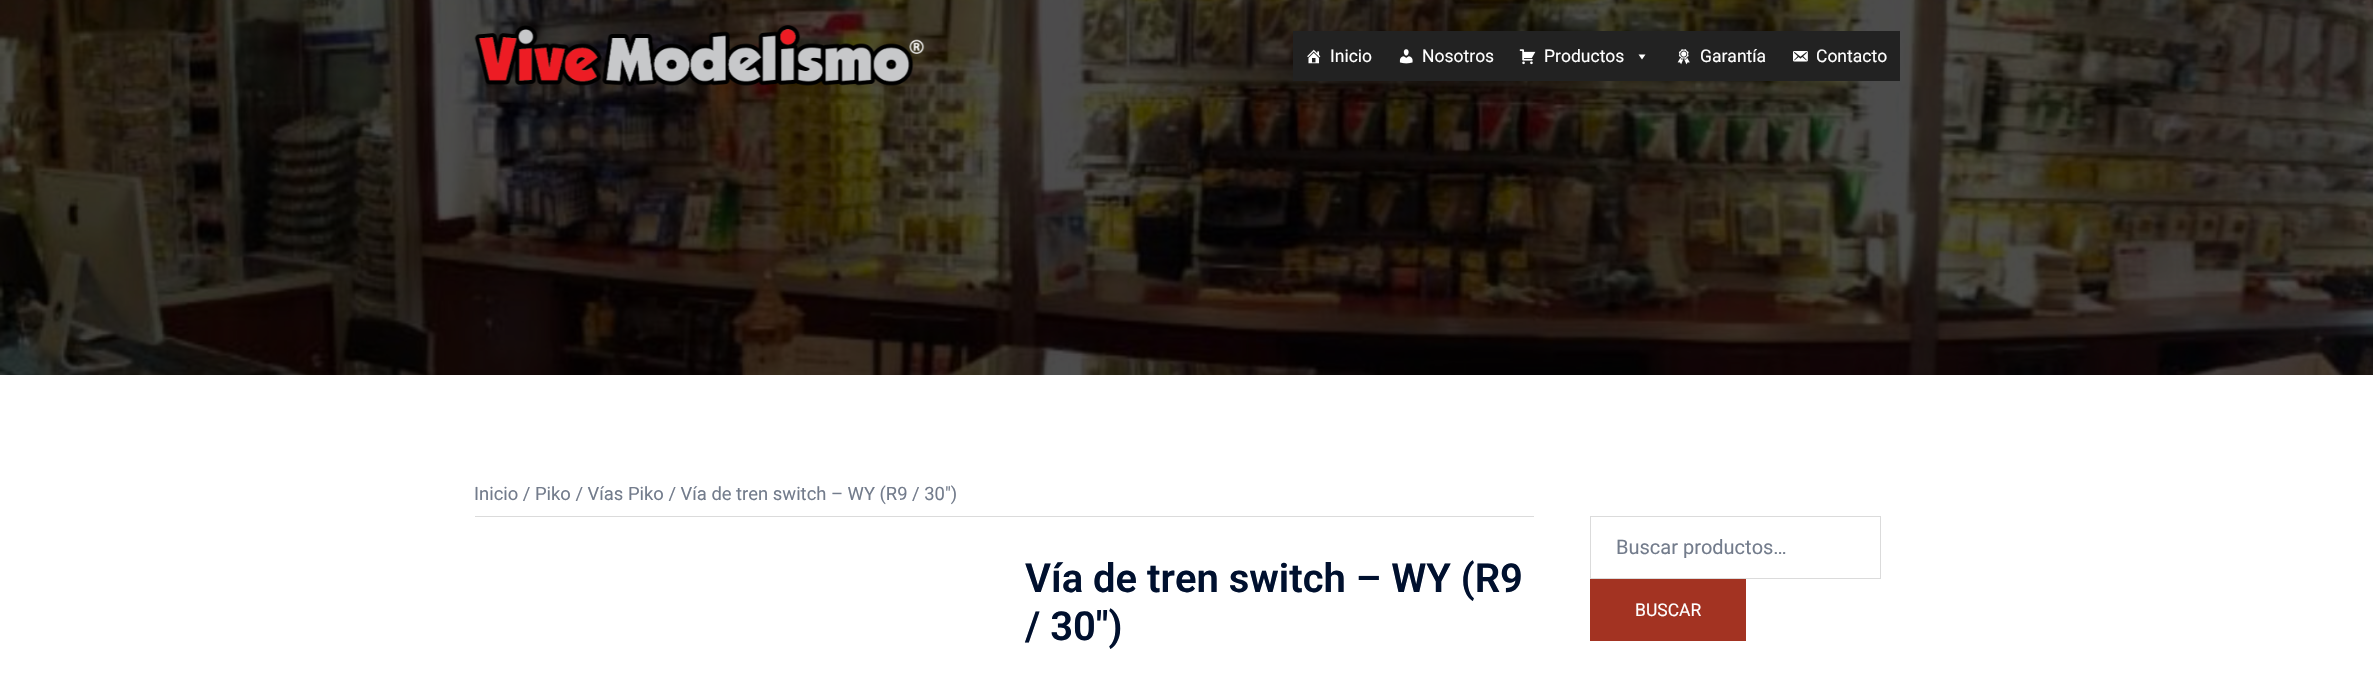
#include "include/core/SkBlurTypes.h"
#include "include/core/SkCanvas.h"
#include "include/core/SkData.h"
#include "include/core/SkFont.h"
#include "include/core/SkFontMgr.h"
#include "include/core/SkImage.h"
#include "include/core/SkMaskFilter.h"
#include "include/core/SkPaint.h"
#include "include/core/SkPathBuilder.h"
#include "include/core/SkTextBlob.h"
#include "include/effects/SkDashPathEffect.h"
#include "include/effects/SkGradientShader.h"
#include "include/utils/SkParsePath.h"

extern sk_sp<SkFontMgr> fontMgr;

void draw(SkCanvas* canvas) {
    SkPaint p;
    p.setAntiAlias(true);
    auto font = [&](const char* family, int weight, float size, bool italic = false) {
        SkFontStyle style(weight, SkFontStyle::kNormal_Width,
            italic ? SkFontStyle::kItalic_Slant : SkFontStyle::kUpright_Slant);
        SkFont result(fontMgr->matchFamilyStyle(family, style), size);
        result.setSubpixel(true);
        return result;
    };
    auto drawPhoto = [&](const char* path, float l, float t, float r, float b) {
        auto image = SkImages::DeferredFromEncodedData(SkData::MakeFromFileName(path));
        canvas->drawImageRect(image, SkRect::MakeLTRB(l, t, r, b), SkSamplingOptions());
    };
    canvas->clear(0xFFFFFFFF);
    drawPhoto("media/1.png", 0, 0, 2373, 375);
    drawPhoto("media/2.png", 474, 25, 925, 87);
    p.setColor(0xFF222222);
    canvas->drawRect(SkRect::MakeLTRB(1293, 31, 1900, 81), p);
    drawPhoto("media/3.png", 1307, 49, 1321, 64);
    auto font1 = font("Roboto", 400, 17.5f);
    p.setColor(0xFFFFFFFF);
    canvas->drawString("Inicio", 1330, 62, font1, p);
    drawPhoto("media/4.png", 1399, 49, 1413, 64);
    canvas->drawString("Nosotros", 1422, 62, font1, p);
    drawPhoto("media/5.png", 1519, 49, 1536, 65);
    canvas->drawString("Productos", 1544, 62, font1, p);
    canvas->drawPath(SkPathBuilder().moveTo(1645.5f, 54.5f).lineTo(1642, 59.5f).lineTo(1638.5f, 54.5f).close().detach(), p);
    drawPhoto("media/6.png", 1677, 49, 1690, 65);
    canvas->drawString("Garantía", 1700, 62, font1, p);
    drawPhoto("media/7.png", 1793, 51, 1808, 62);
    canvas->drawString("Contacto", 1816, 62, font1, p);
    p.setColor(0xFFDBDBDB);
    canvas->drawRect(SkRect::MakeLTRB(475, 516, 1534, 517), p);
    auto font2 = font("Roboto", 400, 18.4f);
    p.setColor(0xFF737C8C);
    canvas->drawString("Inicio / Piko / Vías Piko / Vía de tren switch – WY (R9 / 30″)", 474, 500, font2, p);
    auto font3 = font("Roboto", 600, 40);
    p.setColor(0xFF00102E);
    canvas->drawString("Vía de tren switch – WY (R9", 1025, 592, font3, p);
    canvas->drawString("/ 30″)", 1025, 640, font3, p);
    p.setStyle(SkPaint::kStroke_Style);
    p.setStrokeWidth(1);
    p.setColor(0xFFDBDBDB);
    canvas->drawRect(SkRect::MakeLTRB(1590.5f, 516.5f, 1880.5f, 578.5f), p);
    auto font4 = font("Roboto", 400, 20);
    p.setStyle(SkPaint::kFill_Style);
    p.setColor(0xFF737C8C);
    canvas->drawString("Buscar productos…", 1616, 554, font4, p);
    p.setColor(0xFFA33322);
    canvas->drawRect(SkRect::MakeLTRB(1590, 579, 1746, 641), p);
    p.setColor(0xFFFFFFFF);
    canvas->drawString("BUSCAR", 1635, 616, font1, p);
}
